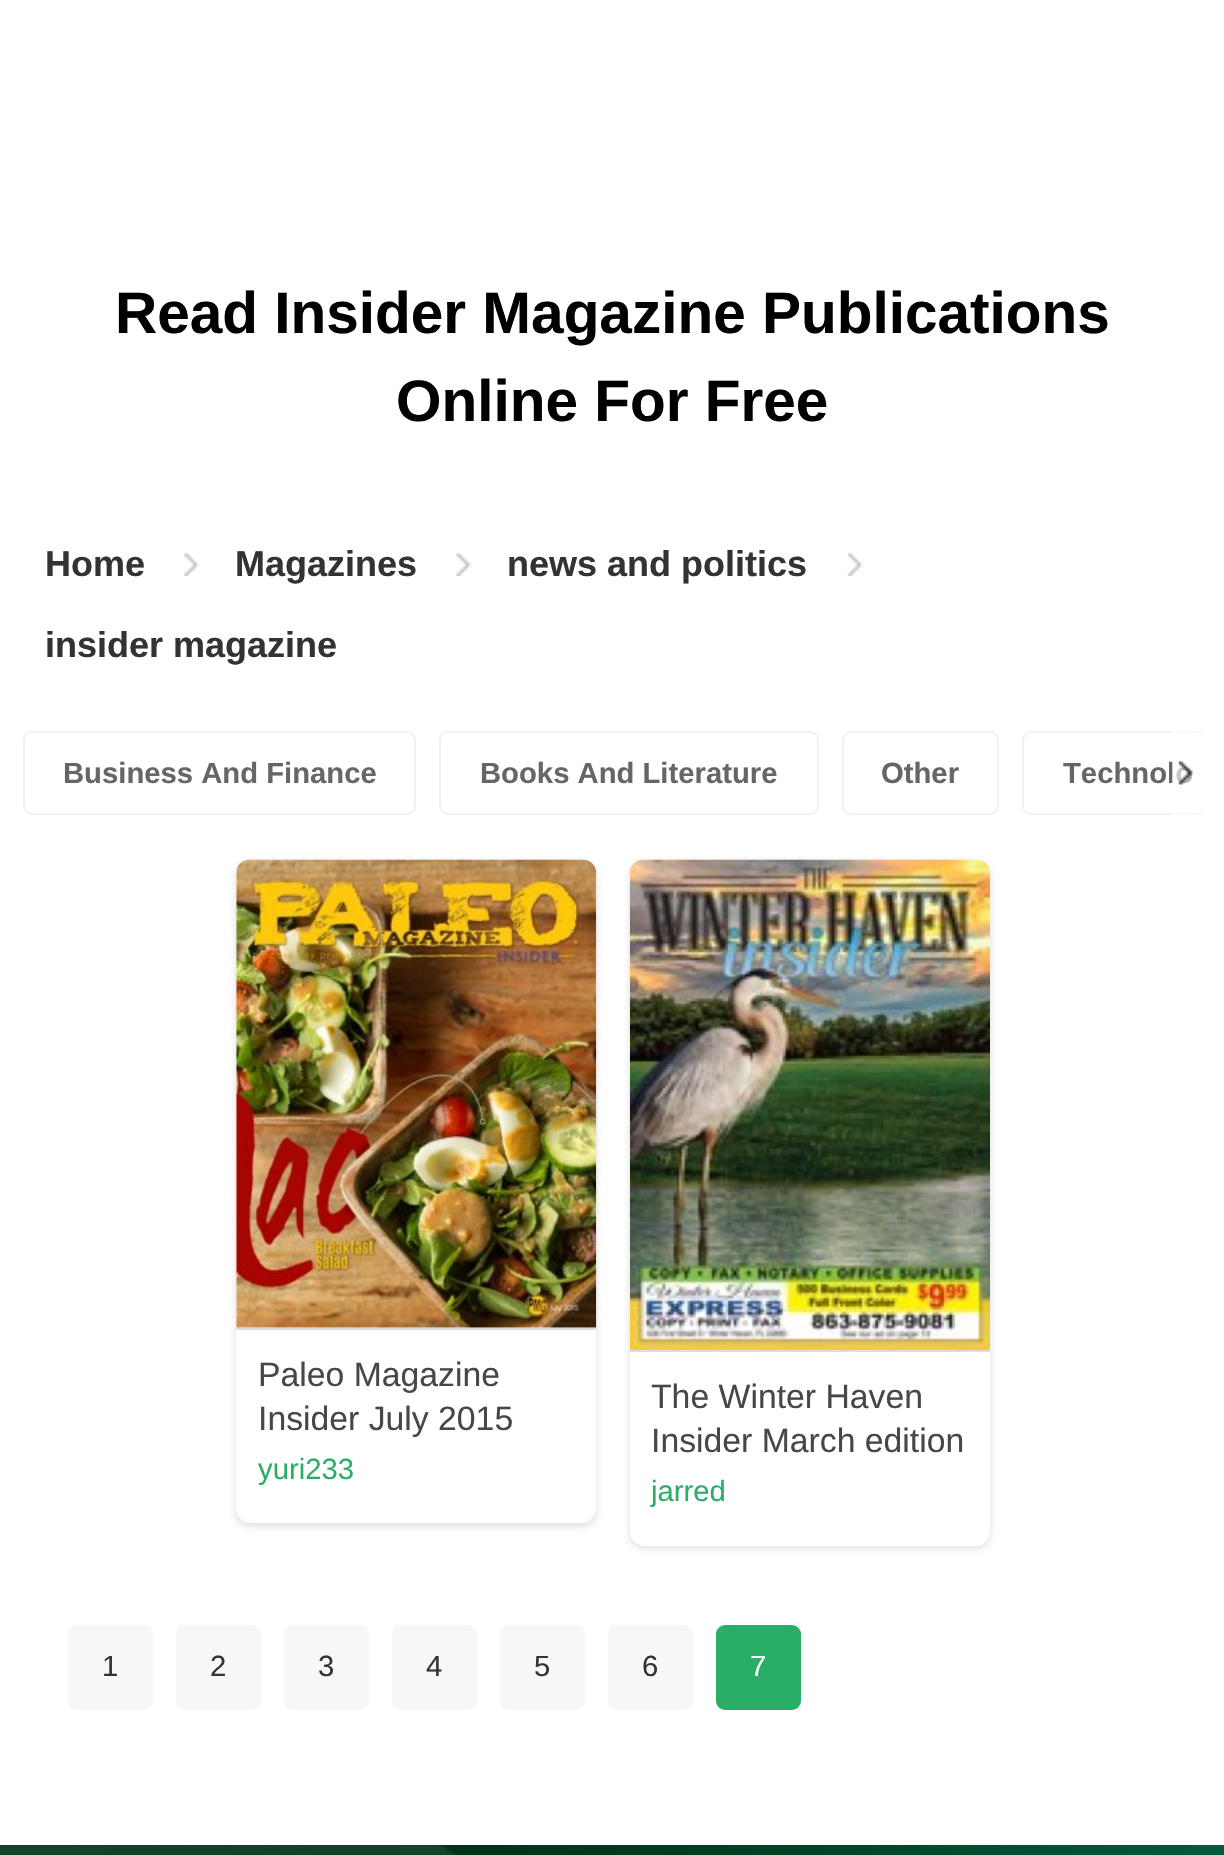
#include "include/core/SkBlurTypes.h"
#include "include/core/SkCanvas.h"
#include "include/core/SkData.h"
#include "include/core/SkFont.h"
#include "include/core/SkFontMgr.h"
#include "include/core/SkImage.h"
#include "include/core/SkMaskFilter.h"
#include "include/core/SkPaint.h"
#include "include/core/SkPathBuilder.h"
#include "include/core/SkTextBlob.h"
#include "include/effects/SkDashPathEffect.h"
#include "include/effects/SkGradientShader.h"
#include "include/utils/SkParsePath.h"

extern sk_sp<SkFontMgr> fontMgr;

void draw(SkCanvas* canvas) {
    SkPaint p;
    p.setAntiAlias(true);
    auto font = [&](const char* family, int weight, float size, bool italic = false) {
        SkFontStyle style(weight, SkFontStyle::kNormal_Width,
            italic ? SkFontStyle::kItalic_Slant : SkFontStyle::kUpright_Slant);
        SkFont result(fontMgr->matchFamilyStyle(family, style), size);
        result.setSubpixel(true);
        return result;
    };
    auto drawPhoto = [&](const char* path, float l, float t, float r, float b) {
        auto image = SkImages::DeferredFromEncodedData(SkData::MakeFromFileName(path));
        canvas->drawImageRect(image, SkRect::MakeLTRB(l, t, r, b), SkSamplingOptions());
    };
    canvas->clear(0xFFFFFFFF);
    auto font1 = font("Liberation Sans", 700, 58.5f);
    p.setColor(0xFF000000);
    canvas->drawString("Read Insider Magazine Publications", 115, 333, font1, p);
    canvas->drawString("Online For Free", 396, 421, font1, p);
    auto font2 = font("Liberation Sans", 700, 36);
    p.setColor(0xFF333333);
    canvas->drawString("Home", 45, 576, font2, p);
    drawPhoto("media/1.png", 184, 553, 199, 576);
    canvas->drawString("Magazines", 235, 576, font2, p);
    drawPhoto("media/2.png", 456, 553, 471, 576);
    canvas->drawString("news and politics", 507, 576, font2, p);
    drawPhoto("media/3.png", 847, 553, 863, 576);
    canvas->drawString("insider magazine", 45, 657, font2, p);
    p.setStyle(SkPaint::kStroke_Style);
    p.setStrokeWidth(2);
    p.setColor(0xFFF1F1F1);
    canvas->drawRoundRect(SkRect::MakeLTRB(24, 732, 415, 814), 8, 8, p);
    auto font3 = font("Liberation Sans", 700, 29.25f);
    p.setStyle(SkPaint::kFill_Style);
    p.setColor(0xFF666666);
    canvas->drawString("Business And Finance", 63, 783, font3, p);
    p.setStyle(SkPaint::kStroke_Style);
    p.setColor(0xFFF1F1F1);
    canvas->drawRoundRect(SkRect::MakeLTRB(440, 732, 818, 814), 8, 8, p);
    p.setStyle(SkPaint::kFill_Style);
    p.setColor(0xFF666666);
    canvas->drawString("Books And Literature", 480, 783, font3, p);
    p.setStyle(SkPaint::kStroke_Style);
    p.setColor(0xFFF1F1F1);
    canvas->drawRoundRect(SkRect::MakeLTRB(843, 732, 998, 814), 8, 8, p);
    p.setStyle(SkPaint::kFill_Style);
    p.setColor(0xFF666666);
    canvas->drawString("Other", 881, 783, font3, p);
    canvas->save();
    canvas->clipRect(SkRect::MakeLTRB(23, 731, 1202, 815));
    p.setStyle(SkPaint::kStroke_Style);
    p.setColor(0xFFF1F1F1);
    canvas->drawRoundRect(SkRect::MakeLTRB(1023, 732, 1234, 814), 8, 8, p);
    canvas->restore();
    p.setStyle(SkPaint::kFill_Style);
    p.setColor(0xFF666666);
    canvas->drawString("Technolo", 1063, 783, font3, p);
    {
        const SkColor colors[] = {0xB3FFFFFF, 0x66FFFFFF};
        const float stops[] = {0, 1};
        const SkPoint ends[] = {{1172, 773}, {1202, 773}};
        p.setShader(SkGradientShader::MakeLinear(ends, colors, stops, 2, SkTileMode::kClamp));
        p.setAlpha(255);
    }
    canvas->drawRect(SkRect::MakeLTRB(1172, 731, 1202, 815), p);
    drawPhoto("media/4.png", 1178, 761, 1194, 785);
    canvas->save();
    canvas->clipPath(SkPathBuilder(SkPathFillType::kEvenOdd).moveTo(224, 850).lineTo(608, 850).lineTo(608, 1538).lineTo(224, 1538).close().moveTo(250, 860).lineTo(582, 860).cubicTo(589.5f, 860, 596, 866.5f, 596, 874).lineTo(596, 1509).cubicTo(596, 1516.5f, 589.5f, 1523, 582, 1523).lineTo(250, 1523).cubicTo(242.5f, 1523, 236, 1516.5f, 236, 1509).lineTo(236, 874).cubicTo(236, 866.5f, 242.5f, 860, 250, 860).close().detach(), true);
    p.setShader(nullptr);
    p.setColor(0xFFDDDDDD);
    p.setMaskFilter(SkMaskFilter::MakeBlur(kNormal_SkBlurStyle, 3.5f));
    canvas->drawRoundRect(SkRect::MakeLTRB(236, 862, 596, 1526), 14, 14, p);
    p.setMaskFilter(nullptr);
    canvas->restore();
    drawPhoto("media/5.png", 236, 859, 597, 1328);
    canvas->drawRect(SkRect::MakeLTRB(236, 1328, 596, 1330), p);
    auto font4 = font("Liberation Sans", 400, 33.75f);
    p.setColor(0xFF474747);
    canvas->drawString("Paleo Magazine", 258, 1386, font4, p);
    canvas->drawString("Insider July 2015", 258, 1430, font4, p);
    auto font5 = font("Liberation Sans", 400, 29.25f);
    p.setColor(0xFF2AAE67);
    canvas->drawString("yuri233", 258, 1479, font5, p);
    canvas->save();
    canvas->clipPath(SkPathBuilder(SkPathFillType::kEvenOdd).moveTo(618, 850).lineTo(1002, 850).lineTo(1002, 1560).lineTo(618, 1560).close().moveTo(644, 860).lineTo(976, 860).cubicTo(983.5f, 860, 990, 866.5f, 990, 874).lineTo(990, 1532).cubicTo(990, 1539.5f, 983.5f, 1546, 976, 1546).lineTo(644, 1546).cubicTo(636.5f, 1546, 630, 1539.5f, 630, 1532).lineTo(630, 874).cubicTo(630, 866.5f, 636.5f, 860, 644, 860).close().detach(), true);
    p.setColor(0xFFDDDDDD);
    p.setMaskFilter(SkMaskFilter::MakeBlur(kNormal_SkBlurStyle, 3.5f));
    canvas->drawRoundRect(SkRect::MakeLTRB(630, 862, 990, 1548), 14, 14, p);
    p.setMaskFilter(nullptr);
    canvas->restore();
    drawPhoto("media/6.png", 630, 859, 990, 1350);
    canvas->drawRect(SkRect::MakeLTRB(630, 1350, 990, 1352), p);
    p.setColor(0xFF474747);
    canvas->drawString("The Winter Haven", 651, 1408, font4, p);
    canvas->drawString("Insider March edition", 651, 1452, font4, p);
    p.setColor(0xFF2AAE67);
    canvas->drawString("jarred", 651, 1501, font5, p);
    p.setColor(0xFFF7F7F7);
    canvas->drawRoundRect(SkRect::MakeLTRB(68, 1625, 153, 1710), 9, 9, p);
    p.setColor(0xFF333333);
    canvas->drawString("1", 102, 1676, font5, p);
    p.setColor(0xFFF7F7F7);
    canvas->drawRoundRect(SkRect::MakeLTRB(176, 1625, 261, 1710), 9, 9, p);
    p.setColor(0xFF333333);
    canvas->drawString("2", 210, 1676, font5, p);
    p.setColor(0xFFF7F7F7);
    canvas->drawRoundRect(SkRect::MakeLTRB(284, 1625, 369, 1710), 9, 9, p);
    p.setColor(0xFF333333);
    canvas->drawString("3", 318, 1676, font5, p);
    p.setColor(0xFFF7F7F7);
    canvas->drawRoundRect(SkRect::MakeLTRB(392, 1625, 477, 1710), 9, 9, p);
    p.setColor(0xFF333333);
    canvas->drawString("4", 426, 1676, font5, p);
    p.setColor(0xFFF7F7F7);
    canvas->drawRoundRect(SkRect::MakeLTRB(500, 1625, 585, 1710), 9, 9, p);
    p.setColor(0xFF333333);
    canvas->drawString("5", 534, 1676, font5, p);
    p.setColor(0xFFF7F7F7);
    canvas->drawRoundRect(SkRect::MakeLTRB(608, 1625, 693, 1710), 9, 9, p);
    p.setColor(0xFF333333);
    canvas->drawString("6", 642, 1676, font5, p);
    p.setColor(0xFF2AAE67);
    canvas->drawRoundRect(SkRect::MakeLTRB(716, 1625, 801, 1710), 9, 9, p);
    p.setColor(0xFFFFFFFF);
    canvas->drawString("7", 750, 1676, font5, p);
    drawPhoto("media/7.png", 0, 1845, 1224, 1855);
}
